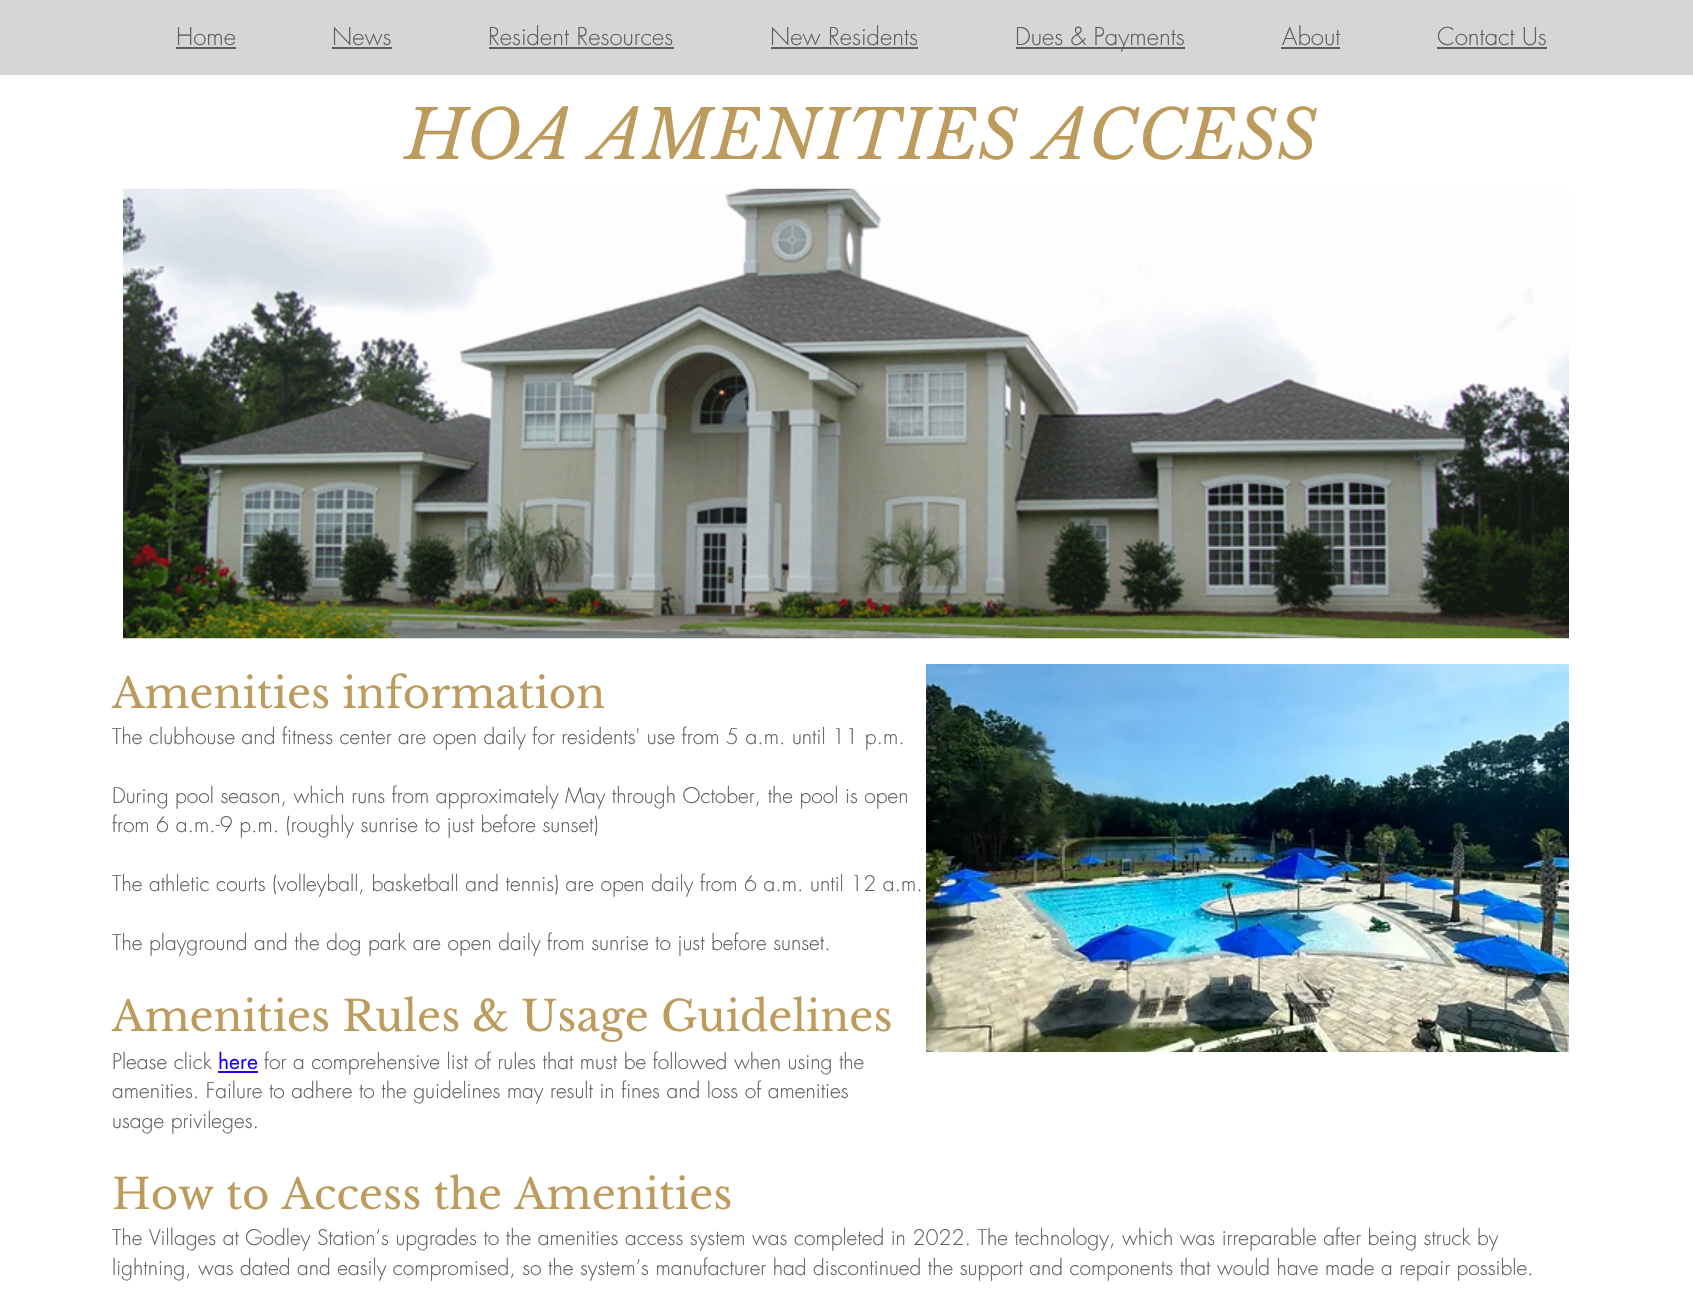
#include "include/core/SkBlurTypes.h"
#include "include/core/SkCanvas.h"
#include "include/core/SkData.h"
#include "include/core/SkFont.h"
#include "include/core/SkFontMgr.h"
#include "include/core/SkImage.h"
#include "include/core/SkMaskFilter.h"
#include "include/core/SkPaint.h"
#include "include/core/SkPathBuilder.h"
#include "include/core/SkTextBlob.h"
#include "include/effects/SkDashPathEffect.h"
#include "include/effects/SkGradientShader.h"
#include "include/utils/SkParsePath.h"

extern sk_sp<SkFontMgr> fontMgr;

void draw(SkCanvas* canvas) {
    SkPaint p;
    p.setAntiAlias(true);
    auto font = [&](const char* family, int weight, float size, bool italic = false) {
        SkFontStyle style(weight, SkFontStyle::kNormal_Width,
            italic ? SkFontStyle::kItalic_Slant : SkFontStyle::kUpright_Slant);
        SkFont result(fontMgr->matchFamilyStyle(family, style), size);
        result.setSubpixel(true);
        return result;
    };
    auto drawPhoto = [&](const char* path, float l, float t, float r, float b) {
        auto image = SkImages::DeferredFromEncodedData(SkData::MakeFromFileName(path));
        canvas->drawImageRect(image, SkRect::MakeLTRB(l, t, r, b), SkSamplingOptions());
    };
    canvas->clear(0xFFFFFFFF);
    p.setColor(0xFFD6D6D6);
    canvas->drawRect(SkRect::MakeLTRB(0, 0, 1693, 75), p);
    auto font1 = font("futura", 300, 24);
    p.setColor(0xFF605E5E);
    canvas->drawString("Home", 176, 45, font1, p);
    canvas->drawRect(SkRect::MakeLTRB(176, 47, 236, 49), p);
    canvas->drawString("News", 332, 45, font1, p);
    canvas->drawRect(SkRect::MakeLTRB(332, 47, 392, 49), p);
    canvas->drawString("Resident Resources", 488, 45, font1, p);
    canvas->drawRect(SkRect::MakeLTRB(489, 47, 674, 49), p);
    canvas->drawString("New Residents", 770, 45, font1, p);
    canvas->drawRect(SkRect::MakeLTRB(771, 47, 918, 49), p);
    canvas->drawRect(SkRect::MakeLTRB(1016, 47, 1185, 49), p);
    canvas->drawString("Dues & Payments", 1015, 45, font1, p);
    canvas->drawString("About", 1282, 45, font1, p);
    canvas->drawRect(SkRect::MakeLTRB(1281, 47, 1340, 49), p);
    canvas->drawString("Contact Us", 1437, 45, font1, p);
    canvas->drawRect(SkRect::MakeLTRB(1437, 47, 1547, 49), p);
    auto font2 = font("Libre Baskerville", 400, 67.5f, true);
    p.setColor(0xFFBC9B5D);
    canvas->drawString("HOA AMENITIES ACCESS", 405, 159, font2, p);
    drawPhoto("media/1.png", 123, 188, 1569, 639);
    drawPhoto("media/2.png", 926, 664, 1569, 1053);
    auto font3 = font("Libre Baskerville", 400, 42);
    canvas->drawString("Amenities information", 112, 708, font3, p);
    auto font4 = font("futura", 300, 21);
    p.setColor(0xFF605E5E);
    {
        const struct { const char* s; float x, y; } items[] = {
            {"The clubhouse and fitness center are open daily for residents' use from 5 a.m. until 11 p.m.", 112, 744},
            {"During pool season, which runs from approximately May through October, the pool is open", 112, 803},
            {"from 6 a.m.-9 p.m. (roughly sunrise to just before sunset)", 112, 832},
            {"The athletic courts (volleyball, basketball and tennis) are open daily from 6 a.m. until 12 a.m.", 112, 891},
            {"The playground and the dog park are open daily from sunrise to just before sunset.", 112, 950},
        };
        for (auto [s, x, y] : items) {
            canvas->drawString(s, x, y, font4, p);
        }
    }
    p.setColor(0xFFBC9B5D);
    canvas->drawString("Amenities Rules & Usage Guidelines", 112, 1031, font3, p);
    p.setColor(0xFF605E5E);
    canvas->drawString("Please click", 112, 1069, font4, p);
    auto font5 = font("futura", 400, 21);
    p.setColor(0xFF1E05F7);
    canvas->drawString("here", 218, 1069, font5, p);
    canvas->drawRect(SkRect::MakeLTRB(218, 1071, 258, 1073), p);
    p.setColor(0xFF605E5E);
    {
        const struct { const char* s; float x, y; } items[] = {
            {"for a comprehensive list of rules that must be followed when using the", 264, 1069},
            {"amenities. Failure to adhere to the guidelines may result in fines and loss of amenities", 112, 1098},
            {"usage privileges.", 112, 1128},
        };
        for (auto [s, x, y] : items) {
            canvas->drawString(s, x, y, font4, p);
        }
    }
    p.setColor(0xFFBC9B5D);
    canvas->drawString("How to Access the Amenities", 112, 1209, font3, p);
    p.setColor(0xFF605E5E);
    canvas->drawString("The Villages at Godley Station’s upgrades to the amenities access system was completed in 2022. The technology, which was irreparable after being struck by", 112, 1245, font4, p);
    canvas->drawString("lightning, was dated and easily compromised, so the system’s manufacturer had discontinued the support and components that would have made a repair possible.", 112, 1275, font4, p);
}
